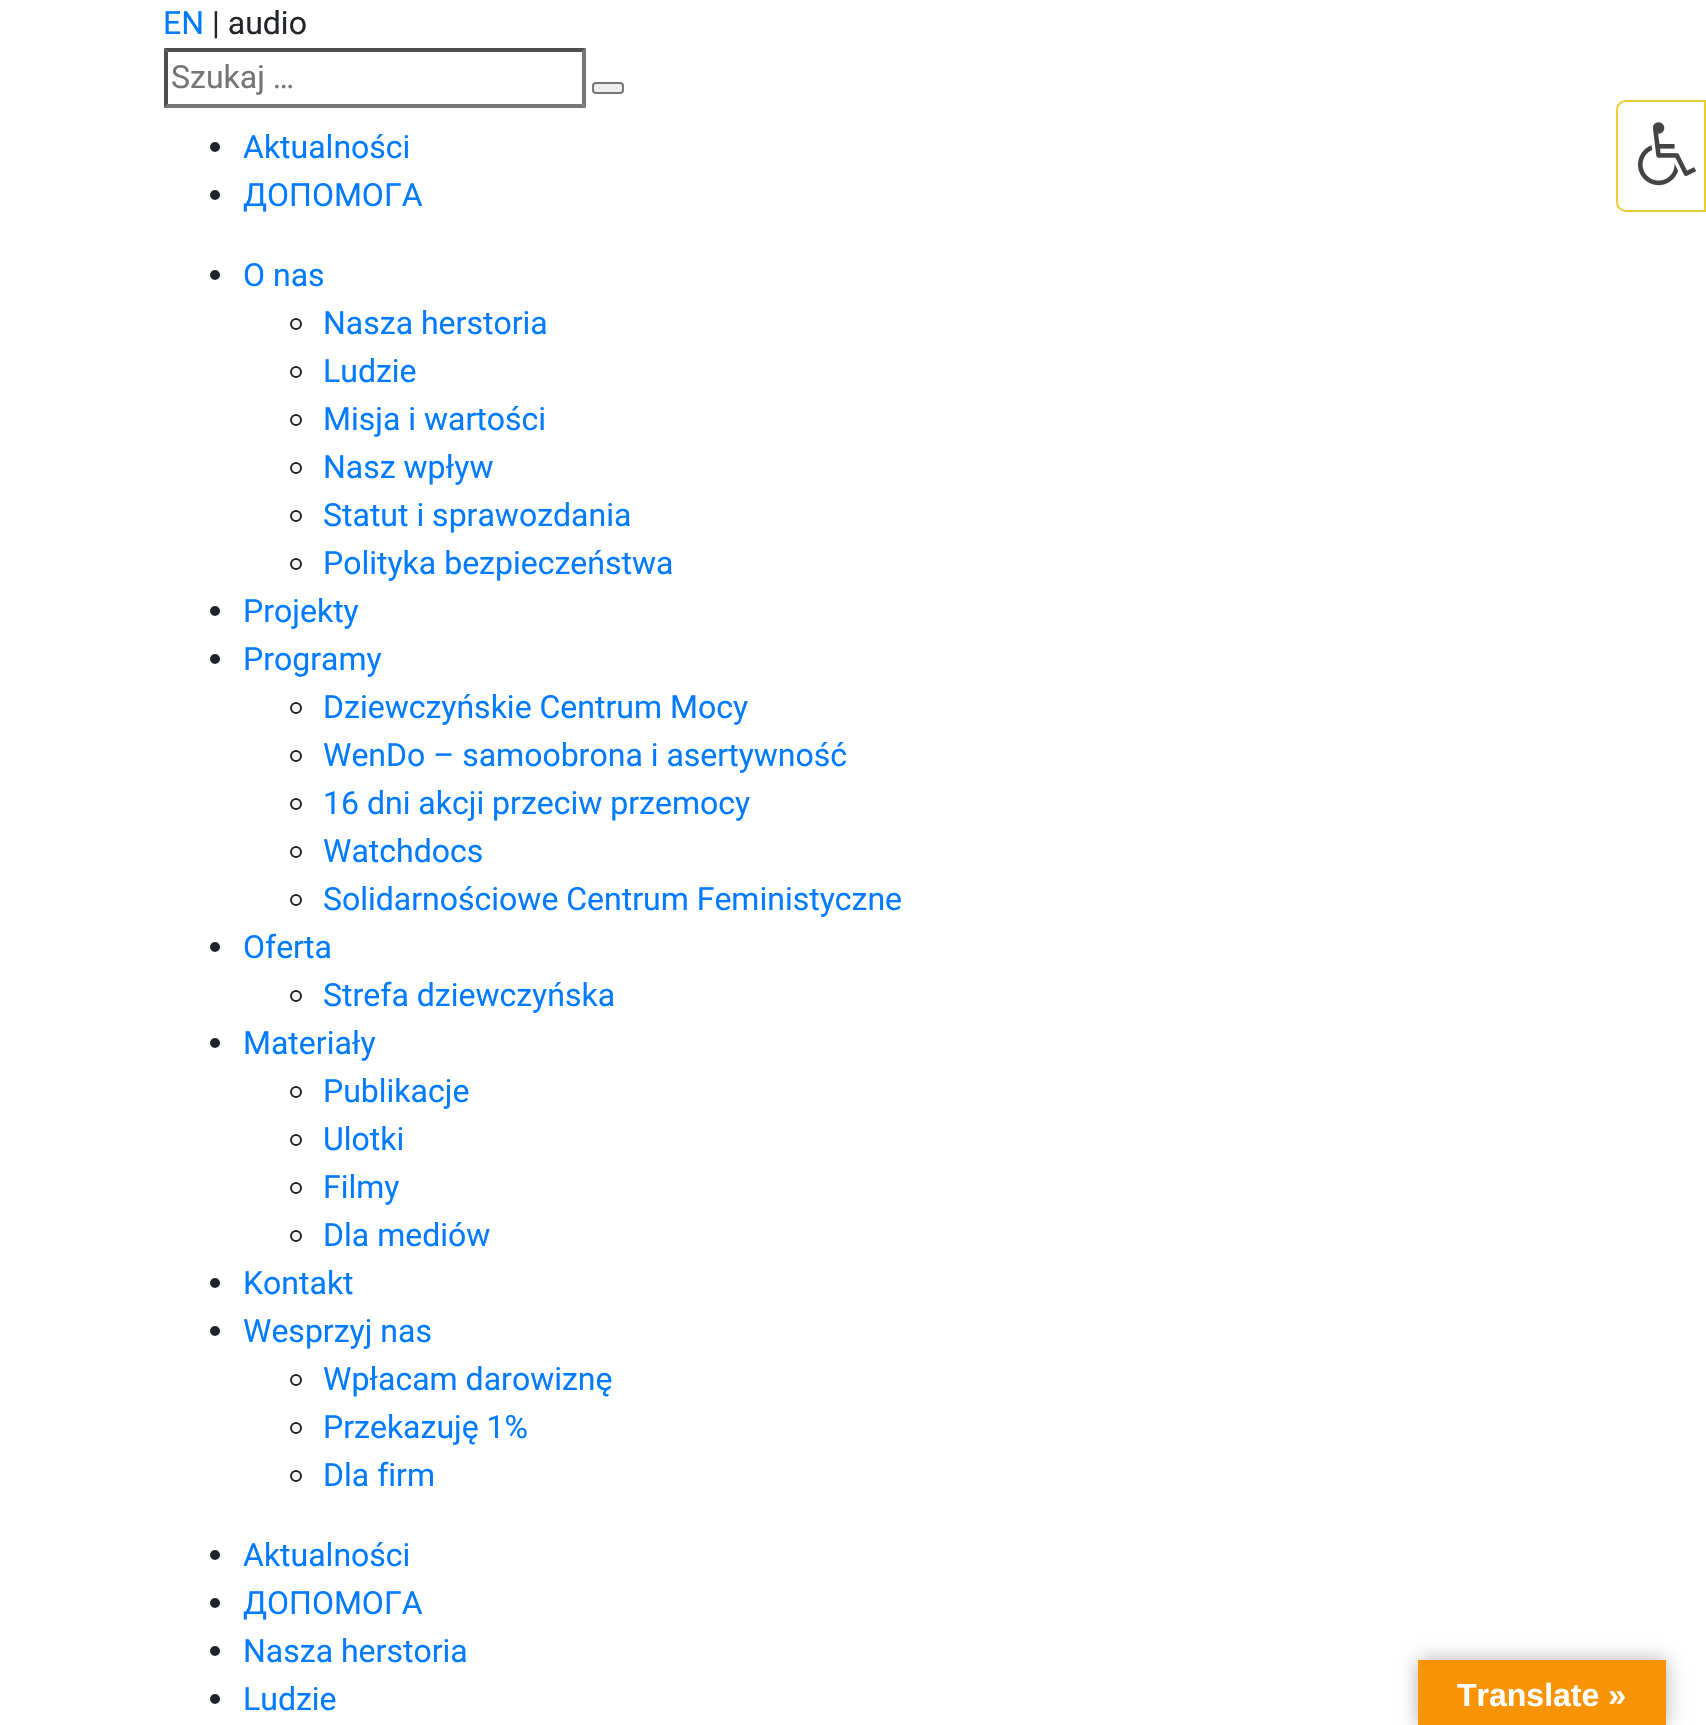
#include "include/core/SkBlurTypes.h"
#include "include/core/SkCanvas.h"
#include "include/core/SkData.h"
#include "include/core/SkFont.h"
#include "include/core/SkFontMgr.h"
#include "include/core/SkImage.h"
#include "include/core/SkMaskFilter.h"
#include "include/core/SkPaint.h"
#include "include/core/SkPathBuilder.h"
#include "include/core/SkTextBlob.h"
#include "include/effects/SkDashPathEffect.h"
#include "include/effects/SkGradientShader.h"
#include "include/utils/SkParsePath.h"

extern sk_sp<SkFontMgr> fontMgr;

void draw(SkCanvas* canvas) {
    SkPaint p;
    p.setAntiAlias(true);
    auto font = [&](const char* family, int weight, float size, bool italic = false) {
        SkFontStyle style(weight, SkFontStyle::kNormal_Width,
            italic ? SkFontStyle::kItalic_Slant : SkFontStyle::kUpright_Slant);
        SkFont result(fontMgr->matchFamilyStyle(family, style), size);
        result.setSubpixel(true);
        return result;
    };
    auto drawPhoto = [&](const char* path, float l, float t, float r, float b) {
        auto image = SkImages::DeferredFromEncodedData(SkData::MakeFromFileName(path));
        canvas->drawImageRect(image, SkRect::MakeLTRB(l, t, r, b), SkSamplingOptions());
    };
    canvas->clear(0xFFFFFFFF);
    auto font1 = font("Roboto", 400, 32);
    p.setColor(0xFF007BFF);
    canvas->drawString("EN", 163, 34, font1, p);
    p.setColor(0xFF212529);
    canvas->drawString("| audio", 212, 34, font1, p);
    p.setColor(0xFF4F4F4F);
    canvas->drawPath(SkPathBuilder().moveTo(164, 48).lineTo(586, 48).lineTo(582, 52).lineTo(168, 52).close().detach(), p);
    p.setColor(0xFF767676);
    canvas->drawPath(SkPathBuilder().moveTo(586, 48).lineTo(586, 108).lineTo(582, 104).lineTo(582, 52).close().detach(), p);
    canvas->drawPath(SkPathBuilder().moveTo(586, 108).lineTo(164, 108).lineTo(168, 104).lineTo(582, 104).close().detach(), p);
    p.setColor(0xFF4F4F4F);
    canvas->drawPath(SkPathBuilder().moveTo(164, 108).lineTo(164, 48).lineTo(168, 52).lineTo(168, 104).close().detach(), p);
    p.setColor(0xFF757575);
    canvas->drawString("Szukaj …", 171, 88, font1, p);
    p.setColor(0xFFEFEFEF);
    canvas->drawRoundRect(SkRect::MakeLTRB(593, 83, 623, 93), 3, 3, p);
    p.setStyle(SkPaint::kStroke_Style);
    p.setStrokeWidth(2);
    p.setColor(0xFF767676);
    canvas->drawRoundRect(SkRect::MakeLTRB(593, 83, 623, 93), 3, 3, p);
    p.setStyle(SkPaint::kFill_Style);
    p.setColor(0xFF212529);
    canvas->drawCircle(215, 147, 5, p);
    p.setColor(0xFF007BFF);
    canvas->drawString("Aktualności", 243, 158, font1, p);
    p.setColor(0xFF212529);
    canvas->drawCircle(215, 195, 5, p);
    p.setColor(0xFF007BFF);
    canvas->drawString("ДОПОМОГА", 243, 206, font1, p);
    p.setColor(0xFF212529);
    canvas->drawCircle(215, 275, 5, p);
    p.setColor(0xFF007BFF);
    canvas->drawString("O nas", 243, 286, font1, p);
    p.setStyle(SkPaint::kStroke_Style);
    p.setColor(0xFF212529);
    canvas->drawCircle(296, 324, 5, p);
    p.setStyle(SkPaint::kFill_Style);
    p.setColor(0xFF007BFF);
    canvas->drawString("Nasza herstoria", 323, 334, font1, p);
    p.setStyle(SkPaint::kStroke_Style);
    p.setColor(0xFF212529);
    canvas->drawCircle(296, 372, 5, p);
    p.setStyle(SkPaint::kFill_Style);
    p.setColor(0xFF007BFF);
    canvas->drawString("Ludzie", 323, 382, font1, p);
    p.setStyle(SkPaint::kStroke_Style);
    p.setColor(0xFF212529);
    canvas->drawCircle(296, 420, 5, p);
    p.setStyle(SkPaint::kFill_Style);
    p.setColor(0xFF007BFF);
    canvas->drawString("Misja i wartości", 323, 430, font1, p);
    p.setStyle(SkPaint::kStroke_Style);
    p.setColor(0xFF212529);
    canvas->drawCircle(296, 468, 5, p);
    p.setStyle(SkPaint::kFill_Style);
    p.setColor(0xFF007BFF);
    canvas->drawString("Nasz wpływ", 323, 478, font1, p);
    p.setStyle(SkPaint::kStroke_Style);
    p.setColor(0xFF212529);
    canvas->drawCircle(296, 516, 5, p);
    p.setStyle(SkPaint::kFill_Style);
    p.setColor(0xFF007BFF);
    canvas->drawString("Statut i sprawozdania", 323, 526, font1, p);
    p.setStyle(SkPaint::kStroke_Style);
    p.setColor(0xFF212529);
    canvas->drawCircle(296, 564, 5, p);
    p.setStyle(SkPaint::kFill_Style);
    p.setColor(0xFF007BFF);
    canvas->drawString("Polityka bezpieczeństwa", 323, 574, font1, p);
    p.setColor(0xFF212529);
    canvas->drawCircle(215, 611, 5, p);
    p.setColor(0xFF007BFF);
    canvas->drawString("Projekty", 243, 622, font1, p);
    p.setColor(0xFF212529);
    canvas->drawCircle(215, 659, 5, p);
    p.setColor(0xFF007BFF);
    canvas->drawString("Programy", 243, 670, font1, p);
    p.setStyle(SkPaint::kStroke_Style);
    p.setColor(0xFF212529);
    canvas->drawCircle(296, 708, 5, p);
    p.setStyle(SkPaint::kFill_Style);
    p.setColor(0xFF007BFF);
    canvas->drawString("Dziewczyńskie Centrum Mocy", 323, 718, font1, p);
    p.setStyle(SkPaint::kStroke_Style);
    p.setColor(0xFF212529);
    canvas->drawCircle(296, 756, 5, p);
    p.setStyle(SkPaint::kFill_Style);
    p.setColor(0xFF007BFF);
    canvas->drawString("WenDo – samoobrona i asertywność", 323, 766, font1, p);
    p.setStyle(SkPaint::kStroke_Style);
    p.setColor(0xFF212529);
    canvas->drawCircle(296, 804, 5, p);
    p.setStyle(SkPaint::kFill_Style);
    p.setColor(0xFF007BFF);
    canvas->drawString("16 dni akcji przeciw przemocy", 323, 814, font1, p);
    p.setStyle(SkPaint::kStroke_Style);
    p.setColor(0xFF212529);
    canvas->drawCircle(296, 852, 5, p);
    p.setStyle(SkPaint::kFill_Style);
    p.setColor(0xFF007BFF);
    canvas->drawString("Watchdocs", 323, 862, font1, p);
    p.setStyle(SkPaint::kStroke_Style);
    p.setColor(0xFF212529);
    canvas->drawCircle(296, 900, 5, p);
    p.setStyle(SkPaint::kFill_Style);
    p.setColor(0xFF007BFF);
    canvas->drawString("Solidarnościowe Centrum Feministyczne", 323, 910, font1, p);
    p.setColor(0xFF212529);
    canvas->drawCircle(215, 947, 5, p);
    p.setColor(0xFF007BFF);
    canvas->drawString("Oferta", 243, 958, font1, p);
    p.setStyle(SkPaint::kStroke_Style);
    p.setColor(0xFF212529);
    canvas->drawCircle(296, 996, 5, p);
    p.setStyle(SkPaint::kFill_Style);
    p.setColor(0xFF007BFF);
    canvas->drawString("Strefa dziewczyńska", 323, 1006, font1, p);
    p.setColor(0xFF212529);
    canvas->drawCircle(215, 1043, 5, p);
    p.setColor(0xFF007BFF);
    canvas->drawString("Materiały", 243, 1054, font1, p);
    p.setStyle(SkPaint::kStroke_Style);
    p.setColor(0xFF212529);
    canvas->drawCircle(296, 1092, 5, p);
    p.setStyle(SkPaint::kFill_Style);
    p.setColor(0xFF007BFF);
    canvas->drawString("Publikacje", 323, 1102, font1, p);
    p.setStyle(SkPaint::kStroke_Style);
    p.setColor(0xFF212529);
    canvas->drawCircle(296, 1140, 5, p);
    p.setStyle(SkPaint::kFill_Style);
    p.setColor(0xFF007BFF);
    canvas->drawString("Ulotki", 323, 1150, font1, p);
    p.setStyle(SkPaint::kStroke_Style);
    p.setColor(0xFF212529);
    canvas->drawCircle(296, 1188, 5, p);
    p.setStyle(SkPaint::kFill_Style);
    p.setColor(0xFF007BFF);
    canvas->drawString("Filmy", 323, 1198, font1, p);
    p.setStyle(SkPaint::kStroke_Style);
    p.setColor(0xFF212529);
    canvas->drawCircle(296, 1236, 5, p);
    p.setStyle(SkPaint::kFill_Style);
    p.setColor(0xFF007BFF);
    canvas->drawString("Dla mediów", 323, 1246, font1, p);
    p.setColor(0xFF212529);
    canvas->drawCircle(215, 1283, 5, p);
    p.setColor(0xFF007BFF);
    canvas->drawString("Kontakt", 243, 1294, font1, p);
    p.setColor(0xFF212529);
    canvas->drawCircle(215, 1331, 5, p);
    p.setColor(0xFF007BFF);
    canvas->drawString("Wesprzyj nas", 243, 1342, font1, p);
    p.setStyle(SkPaint::kStroke_Style);
    p.setColor(0xFF212529);
    canvas->drawCircle(296, 1380, 5, p);
    p.setStyle(SkPaint::kFill_Style);
    p.setColor(0xFF007BFF);
    canvas->drawString("Wpłacam darowiznę", 323, 1390, font1, p);
    p.setStyle(SkPaint::kStroke_Style);
    p.setColor(0xFF212529);
    canvas->drawCircle(296, 1428, 5, p);
    p.setStyle(SkPaint::kFill_Style);
    p.setColor(0xFF007BFF);
    canvas->drawString("Przekazuję 1%", 323, 1438, font1, p);
    p.setStyle(SkPaint::kStroke_Style);
    p.setColor(0xFF212529);
    canvas->drawCircle(296, 1476, 5, p);
    p.setStyle(SkPaint::kFill_Style);
    p.setColor(0xFF007BFF);
    canvas->drawString("Dla firm", 323, 1486, font1, p);
    p.setColor(0xFF212529);
    canvas->drawCircle(215, 1555, 5, p);
    p.setColor(0xFF007BFF);
    canvas->drawString("Aktualności", 243, 1566, font1, p);
    p.setColor(0xFF212529);
    canvas->drawCircle(215, 1603, 5, p);
    p.setColor(0xFF007BFF);
    canvas->drawString("ДОПОМОГА", 243, 1614, font1, p);
    p.setColor(0xFF212529);
    canvas->drawCircle(215, 1651, 5, p);
    p.setColor(0xFF007BFF);
    canvas->drawString("Nasza herstoria", 243, 1662, font1, p);
    p.setColor(0xFF212529);
    canvas->drawCircle(215, 1699, 5, p);
    p.setColor(0xFF007BFF);
    canvas->drawString("Ludzie", 243, 1710, font1, p);
    p.setStyle(SkPaint::kStroke_Style);
    p.setColor(0xFFEDCD2D);
    canvas->drawPath(SkPathBuilder().moveTo(1626, 101).lineTo(1705, 101).lineTo(1705, 211).lineTo(1626, 211).cubicTo(1621, 211, 1617, 207, 1617, 202).lineTo(1617, 110).cubicTo(1617, 105, 1621, 101, 1626, 101).close().detach(), p);
    drawPhoto("media/1.png", 1638, 122, 1697, 186);
    p.setStyle(SkPaint::kFill_Style);
    p.setColor(0x4D000000);
    p.setMaskFilter(SkMaskFilter::MakeBlur(kNormal_SkBlurStyle, 9));
    canvas->drawRect(SkRect::MakeLTRB(1418, 1660, 1666, 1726), p);
    p.setMaskFilter(nullptr);
    p.setColor(0xFFF89406);
    canvas->drawRect(SkRect::MakeLTRB(1418, 1660, 1666, 1725), p);
    auto font2 = font("Liberation Sans", 700, 32);
    p.setColor(0xFFFFFFFF);
    canvas->drawString("Translate »", 1457, 1706, font2, p);
}
